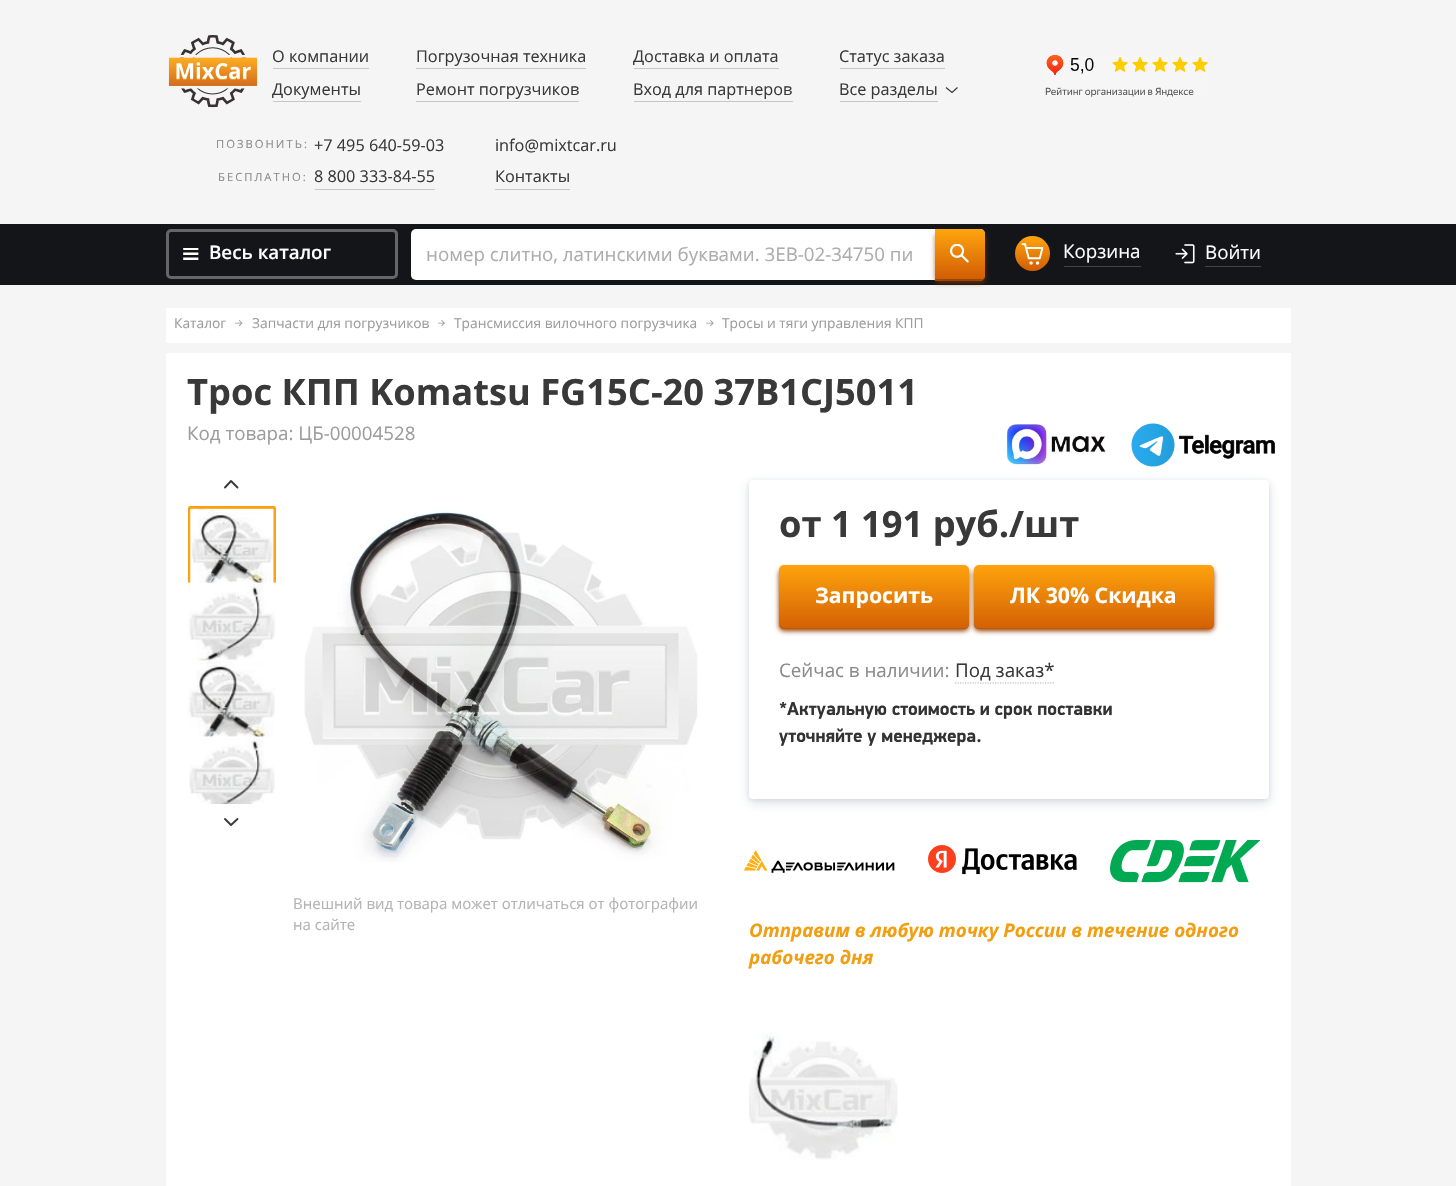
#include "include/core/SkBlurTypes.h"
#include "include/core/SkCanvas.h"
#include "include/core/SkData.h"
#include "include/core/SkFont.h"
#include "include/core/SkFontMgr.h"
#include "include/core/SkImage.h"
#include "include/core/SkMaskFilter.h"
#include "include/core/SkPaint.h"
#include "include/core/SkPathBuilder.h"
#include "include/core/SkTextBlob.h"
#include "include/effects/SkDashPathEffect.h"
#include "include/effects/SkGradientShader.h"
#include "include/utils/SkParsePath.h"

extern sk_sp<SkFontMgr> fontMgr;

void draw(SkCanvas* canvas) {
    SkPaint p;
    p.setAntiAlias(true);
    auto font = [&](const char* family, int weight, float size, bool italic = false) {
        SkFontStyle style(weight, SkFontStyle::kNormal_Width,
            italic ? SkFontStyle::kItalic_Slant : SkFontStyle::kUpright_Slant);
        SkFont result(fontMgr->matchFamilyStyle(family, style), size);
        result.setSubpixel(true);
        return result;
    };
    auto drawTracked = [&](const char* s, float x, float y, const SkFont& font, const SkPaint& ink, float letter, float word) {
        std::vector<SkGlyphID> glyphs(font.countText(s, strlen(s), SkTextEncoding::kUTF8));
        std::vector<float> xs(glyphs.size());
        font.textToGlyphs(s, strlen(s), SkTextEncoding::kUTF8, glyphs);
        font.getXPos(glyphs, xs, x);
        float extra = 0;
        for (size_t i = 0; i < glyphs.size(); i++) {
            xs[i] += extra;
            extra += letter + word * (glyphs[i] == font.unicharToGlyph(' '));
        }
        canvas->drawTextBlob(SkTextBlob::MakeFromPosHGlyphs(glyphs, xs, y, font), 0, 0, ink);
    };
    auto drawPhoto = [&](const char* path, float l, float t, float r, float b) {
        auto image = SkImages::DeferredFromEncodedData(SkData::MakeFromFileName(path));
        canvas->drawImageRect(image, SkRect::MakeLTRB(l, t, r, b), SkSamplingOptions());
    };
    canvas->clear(0xFFF5F5F5);
    drawPhoto("media/1.png", 168, 35, 258, 108);
    p.setColor(0xFFC7C7C7);
    canvas->drawRect(SkRect::MakeLTRB(273, 68, 369, 69), p);
    auto font1 = font("Open Sans", 400, 16.25f);
    p.setColor(0xFF393939);
    canvas->drawString("О компании", 272, 62, font1, p);
    p.setColor(0xFFC7C7C7);
    canvas->drawRect(SkRect::MakeLTRB(273, 101, 361, 102), p);
    p.setColor(0xFF393939);
    canvas->drawString("Документы", 272, 95, font1, p);
    p.setColor(0xFFC7C7C7);
    canvas->drawRect(SkRect::MakeLTRB(416, 68, 586, 69), p);
    p.setColor(0xFF393939);
    canvas->drawString("Погрузочная техника", 416, 62, font1, p);
    p.setColor(0xFFC7C7C7);
    canvas->drawRect(SkRect::MakeLTRB(416, 101, 579, 102), p);
    p.setColor(0xFF393939);
    canvas->drawString("Ремонт погрузчиков", 416, 95, font1, p);
    p.setColor(0xFFC7C7C7);
    canvas->drawRect(SkRect::MakeLTRB(634, 68, 779, 69), p);
    p.setColor(0xFF393939);
    canvas->drawString("Доставка и оплата", 633, 62, font1, p);
    p.setColor(0xFFC7C7C7);
    canvas->drawRect(SkRect::MakeLTRB(634, 101, 793, 102), p);
    p.setColor(0xFF393939);
    canvas->drawString("Вход для партнеров", 633, 95, font1, p);
    p.setColor(0xFFC7C7C7);
    canvas->drawRect(SkRect::MakeLTRB(840, 68, 945, 69), p);
    p.setColor(0xFF393939);
    canvas->drawString("Статус заказа", 839, 62, font1, p);
    p.setColor(0xFFC7C7C7);
    canvas->drawRect(SkRect::MakeLTRB(840, 101, 938, 102), p);
    p.setColor(0xFF393939);
    canvas->drawString("Все разделы", 839, 95, font1, p);
    p.setStyle(SkPaint::kStroke_Style);
    p.setStrokeWidth(1.2f);
    canvas->drawPath(SkPathBuilder().moveTo(946, 87.5f).lineTo(952, 92.5f).lineTo(957.5f, 87.5f).detach(), p);
    drawPhoto("media/2.png", 1045, 55, 1208, 97);
    auto font2 = font("Open Sans", 400, 11.25f);
    p.setStyle(SkPaint::kFill_Style);
    p.setColor(0xFF8A8A8A);
    drawTracked("ПОЗВОНИТЬ:", 216, 148, font2, p, 2, 0);
    p.setColor(0xFF393939);
    canvas->drawString("+7 495 640-59-03", 314, 151, font1, p);
    p.setColor(0xFF8A8A8A);
    drawTracked("БЕСПЛАТНО:", 218, 181, font2, p, 2, 0);
    p.setColor(0xFFC7C7C7);
    canvas->drawRect(SkRect::MakeLTRB(315, 189, 435, 190), p);
    p.setColor(0xFF393939);
    canvas->drawString("8 800 333-84-55", 314, 182, font1, p);
    canvas->drawString("info@mixtcar.ru", 495, 151, font1, p);
    p.setColor(0xFFC7C7C7);
    canvas->drawRect(SkRect::MakeLTRB(495, 189, 570, 190), p);
    p.setColor(0xFF393939);
    canvas->drawString("Контакты", 495, 182, font1, p);
    p.setColor(0xFF131519);
    canvas->drawRect(SkRect::MakeLTRB(0, 224, 1456, 285), p);
    p.setStyle(SkPaint::kStroke_Style);
    p.setStrokeWidth(3);
    p.setColor(0xFF64676A);
    canvas->drawRoundRect(SkRect::MakeLTRB(167.5f, 230.5f, 396.5f, 277.5f), 3.5f, 3.5f, p);
    drawPhoto("media/3.png", 183, 248, 199, 260);
    auto font3 = font("Open Sans", 600, 18.75f);
    p.setStyle(SkPaint::kFill_Style);
    p.setColor(0xFFFFFFFF);
    canvas->drawString("Весь каталог", 209, 259, font3, p);
    canvas->drawRoundRect(SkRect::MakeLTRB(411, 229, 985, 280), 5, 5, p);
    auto font4 = font("Open Sans", 400, 18.75f);
    p.setColor(0xFFACACAC);
    canvas->drawString("номер слитно, латинскими буквами. 3EB-02-34750 пи", 426, 261, font4, p);
    p.setColor(0xFFAA4D00);
    canvas->drawPath(SkPathBuilder().moveTo(935, 279).lineTo(935, 281).lineTo(980, 281).cubicTo(983, 281, 985, 279, 985, 276).lineTo(985, 274).cubicTo(985, 277, 983, 279, 980, 279).close().detach(), p);
    p.setColor(0xA8944000);
    p.setMaskFilter(SkMaskFilter::MakeBlur(kNormal_SkBlurStyle, 2.5f));
    canvas->drawRoundRect(SkRect::MakeLTRB(935, 233, 985, 283), 5, 5, p);
    p.setMaskFilter(nullptr);
    {
        const SkColor colors[] = {0xFFFFA50E, 0xFFD15D05};
        const float stops[] = {0, 1};
        const SkPoint ends[] = {{960, 229}, {960, 279}};
        p.setShader(SkGradientShader::MakeLinear(ends, colors, stops, 2, SkTileMode::kClamp));
        p.setAlpha(255);
    }
    canvas->drawPath(SkPathBuilder().moveTo(935, 229).lineTo(980, 229).cubicTo(983, 229, 985, 231, 985, 234).lineTo(985, 274).cubicTo(985, 277, 983, 279, 980, 279).lineTo(935, 279).close().detach(), p);
    drawPhoto("media/4.png", 950, 244, 969, 263);
    {
        const SkColor colors[] = {0xFFFFA50E, 0xFFD15D05};
        const float stops[] = {0, 1};
        const SkPoint ends[] = {{1033, 236}, {1033, 271}};
        p.setShader(SkGradientShader::MakeLinear(ends, colors, stops, 2, SkTileMode::kClamp));
        p.setAlpha(255);
    }
    canvas->drawCircle(1032.5f, 253.5f, 17.5f, p);
    drawPhoto("media/5.png", 1021, 243, 1044, 265);
    p.setShader(nullptr);
    p.setColor(0xFF424447);
    canvas->drawRect(SkRect::MakeLTRB(1064, 266, 1141, 267), p);
    p.setColor(0xFFFFFFFF);
    canvas->drawString("Корзина", 1063, 258, font4, p);
    drawPhoto("media/6.png", 1175, 244, 1195, 264);
    p.setColor(0xFF424447);
    canvas->drawRect(SkRect::MakeLTRB(1205, 266, 1261, 267), p);
    p.setColor(0xFFFFFFFF);
    canvas->drawString("Войти", 1205, 259, font4, p);
    canvas->drawRect(SkRect::MakeLTRB(166, 308, 1291, 343), p);
    auto font5 = font("Open Sans", 400, 13.75f);
    p.setColor(0xFF9C9C9C);
    canvas->drawString("Каталог", 174, 328, font5, p);
    drawPhoto("media/7.png", 235, 320, 243, 326);
    canvas->drawString("Запчасти для погрузчиков", 252, 328, font5, p);
    drawPhoto("media/8.png", 438, 320, 445, 326);
    canvas->drawString("Трансмиссия вилочного погрузчика", 454, 328, font5, p);
    drawPhoto("media/9.png", 706, 320, 714, 326);
    canvas->drawString("Тросы и тяги управления КПП", 722, 328, font5, p);
    p.setColor(0xFFFFFFFF);
    canvas->drawRect(SkRect::MakeLTRB(166, 353, 1291, 1186), p);
    auto font6 = font("Open Sans", 700, 36.25f);
    p.setColor(0xFF393939);
    canvas->drawString("Трос КПП Komatsu FG15C-20 37B1CJ5011", 187, 405, font6, p);
    p.setColor(0xFF9C9C9C);
    canvas->drawString("Код товара: ЦБ-00004528", 187, 440, font4, p);
    drawPhoto("media/10.png", 1006, 424, 1106, 465);
    p.setColor(0x3352627E);
    p.setMaskFilter(SkMaskFilter::MakeBlur(kNormal_SkBlurStyle, 6));
    canvas->drawRoundRect(SkRect::MakeLTRB(749, 484, 1269, 803), 4, 4, p);
    p.setMaskFilter(nullptr);
    drawPhoto("media/11.png", 1131, 423, 1275, 467);
    p.setStyle(SkPaint::kStroke_Style);
    p.setStrokeWidth(1.9f);
    p.setStrokeCap(SkPaint::kRound_Cap);
    p.setStrokeJoin(SkPaint::kRound_Join);
    p.setColor(0xFF393939);
    canvas->drawPath(SkPathBuilder().moveTo(225, 487.5f).lineTo(231, 481).lineTo(237.5f, 487.5f).detach(), p);
    drawPhoto("media/12.png", 187, 506, 237, 518);
    p.setStrokeWidth(3);
    p.setStrokeCap(SkPaint::kButt_Cap);
    p.setStrokeJoin(SkPaint::kMiter_Join);
    p.setColor(0xFFFC9F0D);
    canvas->drawRoundRect(SkRect::MakeLTRB(189.5f, 507.5f, 274.5f, 593.5f), 1, 1, p);
    drawPhoto("media/13.png", 189, 508, 275, 583);
    drawPhoto("media/14.png", 187, 581, 276, 671);
    drawPhoto("media/15.png", 187, 659, 275, 748);
    drawPhoto("media/16.png", 189, 735, 275, 804);
    p.setStrokeWidth(1.9f);
    p.setStrokeCap(SkPaint::kRound_Cap);
    p.setStrokeJoin(SkPaint::kRound_Join);
    p.setColor(0xFF393939);
    canvas->drawPath(SkPathBuilder().moveTo(225, 819).lineTo(231, 825).lineTo(237.5f, 819).detach(), p);
    drawPhoto("media/17.png", 304, 508, 698, 862);
    auto font7 = font("Open Sans", 400, 15);
    p.setStyle(SkPaint::kFill_Style);
    p.setColor(0xFFB3B3B3);
    canvas->drawString("Внешний вид товара может отличаться от фотографии", 293, 909, font7, p);
    canvas->drawString("на сайте", 293, 930, font7, p);
    p.setColor(0x1A303C66);
    p.setMaskFilter(SkMaskFilter::MakeBlur(kNormal_SkBlurStyle, 2));
    canvas->drawRoundRect(SkRect::MakeLTRB(749, 481, 1269, 800), 4, 4, p);
    p.setMaskFilter(nullptr);
    p.setColor(0xFFFFFFFF);
    canvas->drawRoundRect(SkRect::MakeLTRB(749, 480, 1269, 799), 4, 4, p);
    p.setColor(0xFF393939);
    canvas->drawString("от 1 191 руб./шт", 779, 537, font6, p);
    p.setColor(0xFF944000);
    p.setMaskFilter(SkMaskFilter::MakeBlur(kNormal_SkBlurStyle, 2.5f));
    canvas->drawRoundRect(SkRect::MakeLTRB(779, 569, 969, 631), 5, 5, p);
    p.setMaskFilter(nullptr);
    p.setColor(0xFFBE5804);
    canvas->drawPath(SkPathBuilder().moveTo(779, 624).cubicTo(779, 627, 781, 629, 784, 629).lineTo(964, 629).cubicTo(967, 629, 969, 627, 969, 624).lineTo(969, 569).lineTo(969, 622).cubicTo(969, 625, 967, 628, 964, 628).lineTo(784, 628).cubicTo(782, 628, 780, 626, 779, 624).close().detach(), p);
    {
        const SkColor colors[] = {0xFFFEA30D, 0xFFD46105};
        const float stops[] = {0, 1};
        const SkPoint ends[] = {{874, 565}, {874, 628}};
        p.setShader(SkGradientShader::MakeLinear(ends, colors, stops, 2, SkTileMode::kClamp));
        p.setAlpha(255);
    }
    canvas->drawRoundRect(SkRect::MakeLTRB(779, 565, 969, 628), 5, 5, p);
    auto font8 = font("Open Sans", 700, 21.25f);
    p.setShader(nullptr);
    p.setColor(0xFFFFFFFF);
    canvas->drawString("Запросить", 815, 603, font8, p);
    p.setColor(0xFF944000);
    p.setMaskFilter(SkMaskFilter::MakeBlur(kNormal_SkBlurStyle, 2.5f));
    canvas->drawRoundRect(SkRect::MakeLTRB(974, 569, 1214, 631), 5, 5, p);
    p.setMaskFilter(nullptr);
    p.setColor(0xFFBE5804);
    canvas->drawPath(SkPathBuilder().moveTo(974, 624).cubicTo(974, 627, 976, 629, 979, 629).lineTo(1209, 629).cubicTo(1212, 629, 1214, 627, 1214, 624).lineTo(1214, 569).lineTo(1214, 622).cubicTo(1214, 625, 1212, 628, 1209, 628).lineTo(979, 628).cubicTo(977, 628, 975, 626, 974, 624).close().detach(), p);
    {
        const SkColor colors[] = {0xFFFEA30D, 0xFFD46105};
        const float stops[] = {0, 1};
        const SkPoint ends[] = {{1094, 565}, {1094, 628}};
        p.setShader(SkGradientShader::MakeLinear(ends, colors, stops, 2, SkTileMode::kClamp));
        p.setAlpha(255);
    }
    canvas->drawRoundRect(SkRect::MakeLTRB(974, 565, 1214, 628), 5, 5, p);
    p.setShader(nullptr);
    p.setColor(0xFFFFFFFF);
    canvas->drawString("ЛК 30% Скидка", 1010, 603, font8, p);
    p.setColor(0xFF8A8A8A);
    canvas->drawString("Сейчас в наличии:", 779, 677, font4, p);
    p.setColor(0xFF393939);
    canvas->drawString("Под заказ*", 955, 677, font4, p);
    p.setStyle(SkPaint::kStroke_Style);
    p.setStrokeWidth(1.2f);
    p.setStrokeCap(SkPaint::kButt_Cap);
    p.setStrokeJoin(SkPaint::kMiter_Join);
    p.setColor(0xFFB3B3B3);
    p.setPathEffect(SkDashPathEffect::Make({{1.25f, 1.25f}}, 0));
    canvas->drawPath(SkPathBuilder().moveTo(955, 683).lineTo(1055, 683).detach(), p);
    p.setPathEffect(nullptr);
    auto font9 = font("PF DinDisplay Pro", 700, 18.75f);
    p.setStyle(SkPaint::kFill_Style);
    p.setColor(0xFF333333);
    canvas->drawString("*Актуальную стоимость и срок поставки", 779, 715, font9, p);
    canvas->drawString("уточняйте у менеджера.", 779, 742, font9, p);
    drawPhoto("media/18.png", 744, 850, 895, 873);
    drawPhoto("media/19.png", 928, 845, 1077, 875);
    drawPhoto("media/20.png", 1110, 840, 1260, 883);
    auto font10 = font("Open Sans", 700, 18.75f, true);
    p.setColor(0xFFF39E10);
    canvas->drawString("Отправим в любую точку России в течение одного", 749, 937, font10, p);
    canvas->drawString("рабочего дня", 749, 964, font10, p);
    drawPhoto("media/21.png", 749, 1032, 898, 1160);
}
